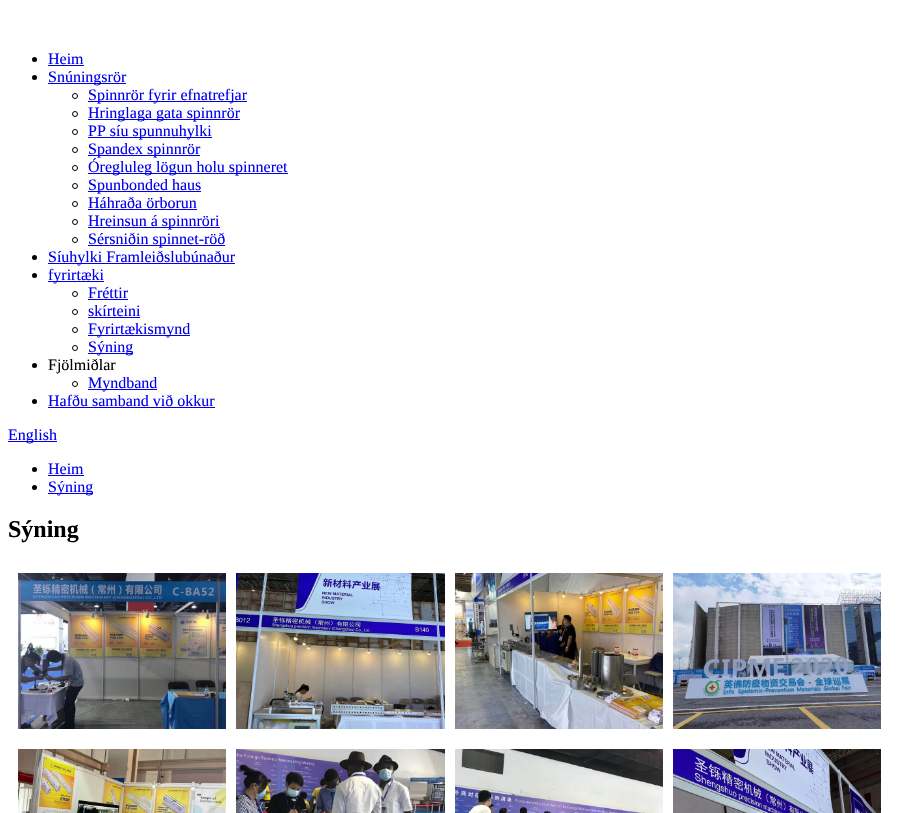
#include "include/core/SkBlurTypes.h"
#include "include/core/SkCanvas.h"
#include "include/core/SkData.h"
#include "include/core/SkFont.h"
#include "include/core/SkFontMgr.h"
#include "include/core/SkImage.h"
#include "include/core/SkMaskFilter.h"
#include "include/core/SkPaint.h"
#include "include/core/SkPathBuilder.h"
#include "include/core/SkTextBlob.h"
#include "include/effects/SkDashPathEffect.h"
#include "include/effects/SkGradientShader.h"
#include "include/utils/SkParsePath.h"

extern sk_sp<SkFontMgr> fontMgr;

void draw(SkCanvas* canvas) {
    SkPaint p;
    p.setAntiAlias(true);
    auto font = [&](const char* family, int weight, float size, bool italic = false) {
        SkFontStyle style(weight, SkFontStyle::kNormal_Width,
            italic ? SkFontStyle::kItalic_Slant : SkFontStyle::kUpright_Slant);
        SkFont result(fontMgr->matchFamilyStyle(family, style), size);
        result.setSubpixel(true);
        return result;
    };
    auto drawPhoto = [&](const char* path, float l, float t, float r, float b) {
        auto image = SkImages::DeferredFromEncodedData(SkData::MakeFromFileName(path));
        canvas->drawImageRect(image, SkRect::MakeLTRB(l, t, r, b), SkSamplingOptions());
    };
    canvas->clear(0xFFFFFFFF);
    p.setColor(0xFF000000);
    canvas->drawCircle(34.5f, 59.5f, 2.5f, p);
    auto font1 = font("Liberation Serif", 400, 16);
    p.setColor(0xFF0000EE);
    canvas->drawString("Heim", 48, 64, font1, p);
    canvas->drawRect(SkRect::MakeLTRB(48, 65, 84, 66), p);
    p.setColor(0xFF000000);
    canvas->drawCircle(34.5f, 77.5f, 2.5f, p);
    p.setColor(0xFF0000EE);
    canvas->drawRect(SkRect::MakeLTRB(48, 83, 126, 84), p);
    canvas->drawString("Snúningsrör", 48, 82, font1, p);
    p.setStyle(SkPaint::kStroke_Style);
    p.setStrokeWidth(1);
    p.setColor(0xFF000000);
    canvas->drawCircle(75, 96, 2.5f, p);
    p.setStyle(SkPaint::kFill_Style);
    p.setColor(0xFF0000EE);
    canvas->drawRect(SkRect::MakeLTRB(88, 101, 247, 102), p);
    canvas->drawString("Spinnrör fyrir efnatrefjar", 88, 100, font1, p);
    p.setStyle(SkPaint::kStroke_Style);
    p.setColor(0xFF000000);
    canvas->drawCircle(75, 114, 2.5f, p);
    p.setStyle(SkPaint::kFill_Style);
    p.setColor(0xFF0000EE);
    canvas->drawRect(SkRect::MakeLTRB(88, 119, 240, 120), p);
    canvas->drawString("Hringlaga gata spinnrör", 88, 118, font1, p);
    p.setStyle(SkPaint::kStroke_Style);
    p.setColor(0xFF000000);
    canvas->drawCircle(75, 132, 2.5f, p);
    p.setStyle(SkPaint::kFill_Style);
    p.setColor(0xFF0000EE);
    canvas->drawRect(SkRect::MakeLTRB(88, 137, 212, 138), p);
    canvas->drawString("PP síu spunnuhylki", 88, 136, font1, p);
    p.setStyle(SkPaint::kStroke_Style);
    p.setColor(0xFF000000);
    canvas->drawCircle(75, 150, 2.5f, p);
    p.setStyle(SkPaint::kFill_Style);
    p.setColor(0xFF0000EE);
    canvas->drawRect(SkRect::MakeLTRB(88, 155, 200, 156), p);
    canvas->drawString("Spandex spinnrör", 88, 154, font1, p);
    p.setStyle(SkPaint::kStroke_Style);
    p.setColor(0xFF000000);
    canvas->drawCircle(75, 168, 2.5f, p);
    p.setStyle(SkPaint::kFill_Style);
    p.setColor(0xFF0000EE);
    canvas->drawRect(SkRect::MakeLTRB(88, 173, 288, 174), p);
    canvas->drawString("Óregluleg lögun holu spinneret", 88, 172, font1, p);
    p.setStyle(SkPaint::kStroke_Style);
    p.setColor(0xFF000000);
    canvas->drawCircle(75, 186, 2.5f, p);
    p.setStyle(SkPaint::kFill_Style);
    p.setColor(0xFF0000EE);
    canvas->drawRect(SkRect::MakeLTRB(88, 191, 201, 192), p);
    canvas->drawString("Spunbonded haus", 88, 190, font1, p);
    p.setStyle(SkPaint::kStroke_Style);
    p.setColor(0xFF000000);
    canvas->drawCircle(75, 204, 2.5f, p);
    p.setStyle(SkPaint::kFill_Style);
    p.setColor(0xFF0000EE);
    canvas->drawString("Háhraða örborun", 88, 208, font1, p);
    canvas->drawRect(SkRect::MakeLTRB(88, 209, 197, 210), p);
    p.setStyle(SkPaint::kStroke_Style);
    p.setColor(0xFF000000);
    canvas->drawCircle(75, 222, 2.5f, p);
    p.setStyle(SkPaint::kFill_Style);
    p.setColor(0xFF0000EE);
    canvas->drawRect(SkRect::MakeLTRB(88, 227, 220, 228), p);
    canvas->drawString("Hreinsun á spinnröri", 88, 226, font1, p);
    p.setStyle(SkPaint::kStroke_Style);
    p.setColor(0xFF000000);
    canvas->drawCircle(75, 240, 2.5f, p);
    p.setStyle(SkPaint::kFill_Style);
    p.setColor(0xFF0000EE);
    canvas->drawRect(SkRect::MakeLTRB(88, 245, 225, 246), p);
    canvas->drawString("Sérsniðin spinnet-röð", 88, 244, font1, p);
    p.setColor(0xFF000000);
    canvas->drawCircle(34.5f, 257.5f, 2.5f, p);
    p.setColor(0xFF0000EE);
    canvas->drawRect(SkRect::MakeLTRB(48, 263, 235, 264), p);
    canvas->drawString("Síuhylki Framleiðslubúnaður", 48, 262, font1, p);
    p.setColor(0xFF000000);
    canvas->drawCircle(34.5f, 275.5f, 2.5f, p);
    p.setColor(0xFF0000EE);
    canvas->drawRect(SkRect::MakeLTRB(48, 281, 104, 282), p);
    canvas->drawString("fyrirtæki", 48, 280, font1, p);
    p.setStyle(SkPaint::kStroke_Style);
    p.setColor(0xFF000000);
    canvas->drawCircle(75, 294, 2.5f, p);
    p.setStyle(SkPaint::kFill_Style);
    p.setColor(0xFF0000EE);
    canvas->drawString("Fréttir", 88, 298, font1, p);
    canvas->drawRect(SkRect::MakeLTRB(88, 299, 128, 300), p);
    p.setStyle(SkPaint::kStroke_Style);
    p.setColor(0xFF000000);
    canvas->drawCircle(75, 312, 2.5f, p);
    p.setStyle(SkPaint::kFill_Style);
    p.setColor(0xFF0000EE);
    canvas->drawString("skírteini", 88, 316, font1, p);
    canvas->drawRect(SkRect::MakeLTRB(88, 317, 140, 318), p);
    p.setStyle(SkPaint::kStroke_Style);
    p.setColor(0xFF000000);
    canvas->drawCircle(75, 330, 2.5f, p);
    p.setStyle(SkPaint::kFill_Style);
    p.setColor(0xFF0000EE);
    canvas->drawRect(SkRect::MakeLTRB(88, 335, 190, 336), p);
    canvas->drawString("Fyrirtækismynd", 88, 334, font1, p);
    p.setStyle(SkPaint::kStroke_Style);
    p.setColor(0xFF000000);
    canvas->drawCircle(75, 348, 2.5f, p);
    p.setStyle(SkPaint::kFill_Style);
    p.setColor(0xFF0000EE);
    canvas->drawRect(SkRect::MakeLTRB(88, 353, 133, 354), p);
    canvas->drawString("Sýning", 88, 352, font1, p);
    p.setColor(0xFF000000);
    canvas->drawCircle(34.5f, 365.5f, 2.5f, p);
    canvas->drawString("Fjölmiðlar", 48, 370, font1, p);
    p.setStyle(SkPaint::kStroke_Style);
    canvas->drawCircle(75, 384, 2.5f, p);
    p.setStyle(SkPaint::kFill_Style);
    p.setColor(0xFF0000EE);
    canvas->drawRect(SkRect::MakeLTRB(88, 389, 157, 390), p);
    canvas->drawString("Myndband", 88, 388, font1, p);
    p.setColor(0xFF000000);
    canvas->drawCircle(34.5f, 401.5f, 2.5f, p);
    p.setColor(0xFF0000EE);
    canvas->drawString("Hafðu samband við okkur", 48, 406, font1, p);
    canvas->drawRect(SkRect::MakeLTRB(48, 407, 215, 408), p);
    canvas->drawRect(SkRect::MakeLTRB(8, 441, 57, 442), p);
    canvas->drawString("English", 8, 440, font1, p);
    p.setColor(0xFF000000);
    canvas->drawCircle(34.5f, 469.5f, 2.5f, p);
    p.setColor(0xFF0000EE);
    canvas->drawString("Heim", 48, 474, font1, p);
    canvas->drawRect(SkRect::MakeLTRB(48, 475, 84, 476), p);
    p.setColor(0xFF000000);
    canvas->drawCircle(34.5f, 487.5f, 2.5f, p);
    p.setColor(0xFF0000EE);
    canvas->drawRect(SkRect::MakeLTRB(48, 493, 93, 494), p);
    canvas->drawString("Sýning", 48, 492, font1, p);
    auto font2 = font("Liberation Serif", 700, 24);
    p.setColor(0xFF000000);
    canvas->drawString("Sýning", 8, 537, font2, p);
    drawPhoto("media/1.png", 18, 573, 226, 729);
    drawPhoto("media/2.png", 236, 573, 445, 729);
    drawPhoto("media/3.png", 455, 573, 663, 729);
    drawPhoto("media/4.png", 673, 573, 881, 729);
    drawPhoto("media/5.png", 18, 749, 226, 813);
    drawPhoto("media/6.png", 236, 749, 445, 813);
    drawPhoto("media/7.png", 455, 749, 663, 813);
    drawPhoto("media/8.png", 673, 749, 881, 813);
}
